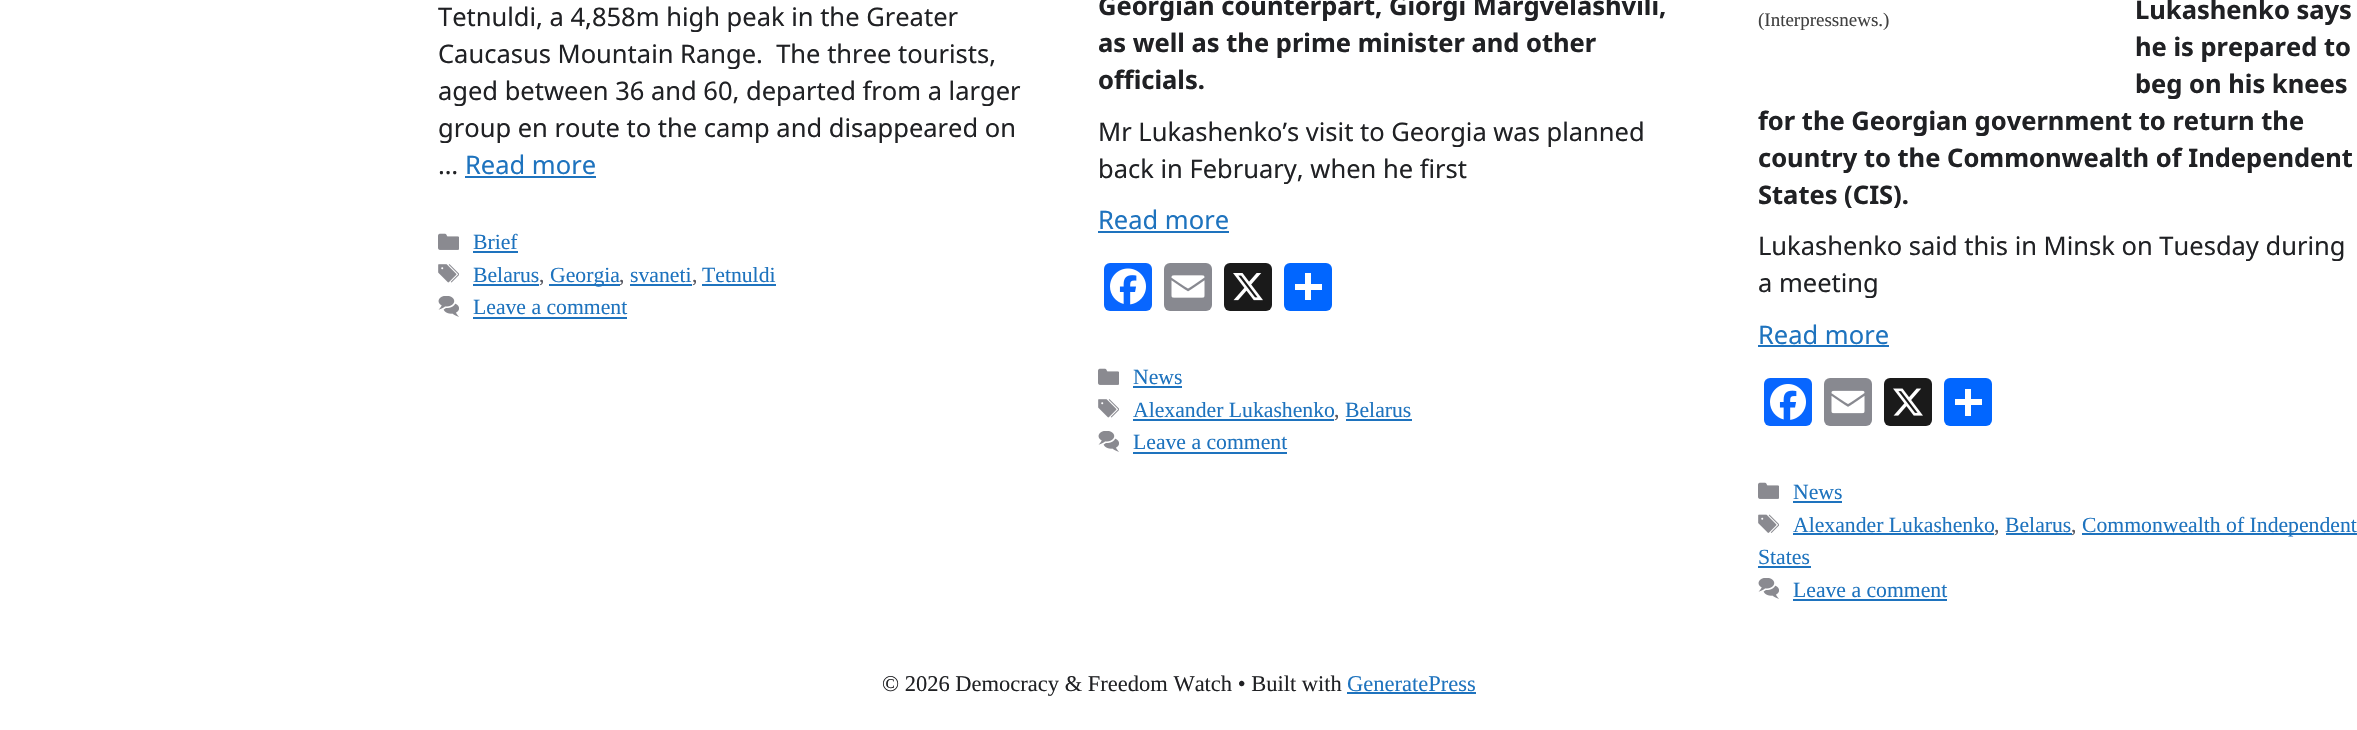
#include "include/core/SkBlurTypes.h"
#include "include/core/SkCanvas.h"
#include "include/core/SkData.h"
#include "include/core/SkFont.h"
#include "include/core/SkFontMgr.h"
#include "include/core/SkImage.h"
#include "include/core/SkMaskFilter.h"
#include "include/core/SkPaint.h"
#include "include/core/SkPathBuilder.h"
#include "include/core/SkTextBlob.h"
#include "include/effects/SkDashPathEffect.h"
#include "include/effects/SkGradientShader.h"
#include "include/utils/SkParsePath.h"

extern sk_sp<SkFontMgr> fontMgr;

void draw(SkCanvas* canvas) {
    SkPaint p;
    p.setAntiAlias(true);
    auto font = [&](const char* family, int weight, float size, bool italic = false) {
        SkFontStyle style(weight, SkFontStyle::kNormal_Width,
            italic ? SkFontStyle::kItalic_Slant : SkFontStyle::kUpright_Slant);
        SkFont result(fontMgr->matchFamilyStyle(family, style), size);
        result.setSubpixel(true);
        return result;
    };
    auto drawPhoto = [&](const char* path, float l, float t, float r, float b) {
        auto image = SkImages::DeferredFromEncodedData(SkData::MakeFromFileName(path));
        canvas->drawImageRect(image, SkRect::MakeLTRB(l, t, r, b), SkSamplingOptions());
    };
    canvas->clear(0xFFFFFFFF);
    auto font1 = font("Noto Sans", 400, 25.5f);
    p.setColor(0xFF202124);
    {
        const struct { const char* s; float x, y; } items[] = {
            {"Tetnuldi, a 4,858m high peak in the Greater", 438, 26},
            {"Caucasus Mountain Range.  The three tourists,", 438, 63},
            {"aged between 36 and 60, departed from a larger", 438, 100},
            {"group en route to the camp and disappeared on", 438, 137},
            {"…", 438, 174},
        };
        for (auto [s, x, y] : items) {
            canvas->drawString(s, x, y, font1, p);
        }
    }
    p.setColor(0xFF1E73BE);
    canvas->drawString("Read more", 465, 174, font1, p);
    canvas->drawRect(SkRect::MakeLTRB(465, 176, 596, 178), p);
    drawPhoto("media/1.png", 438, 233, 459, 250);
    auto font2 = font("Liberation Serif", 400, 21.7f);
    canvas->drawString("Brief", 473, 249, font2, p);
    canvas->drawRect(SkRect::MakeLTRB(473, 251, 518, 253), p);
    drawPhoto("media/2.png", 438, 264, 459, 283);
    canvas->drawString("Belarus", 473, 282, font2, p);
    canvas->drawRect(SkRect::MakeLTRB(473, 284, 539, 286), p);
    p.setColor(0xFF575760);
    canvas->drawString(",", 539, 282, font2, p);
    p.setColor(0xFF1E73BE);
    canvas->drawRect(SkRect::MakeLTRB(549, 284, 620, 286), p);
    canvas->drawString("Georgia", 550, 282, font2, p);
    p.setColor(0xFF575760);
    canvas->drawString(",", 619, 282, font2, p);
    p.setColor(0xFF1E73BE);
    canvas->drawString("svaneti", 630, 282, font2, p);
    canvas->drawRect(SkRect::MakeLTRB(630, 284, 692, 286), p);
    p.setColor(0xFF575760);
    canvas->drawString(",", 692, 282, font2, p);
    p.setColor(0xFF1E73BE);
    canvas->drawString("Tetnuldi", 702, 282, font2, p);
    canvas->drawRect(SkRect::MakeLTRB(702, 284, 776, 286), p);
    drawPhoto("media/3.png", 438, 296, 459, 317);
    canvas->drawString("Leave a comment", 473, 314, font2, p);
    canvas->drawRect(SkRect::MakeLTRB(473, 317, 627, 319), p);
    auto font3 = font("Noto Sans", 700, 25.5f);
    p.setColor(0xFF202124);
    {
        const struct { const char* s; float x, y; } items[] = {
            {"Georgian counterpart, Giorgi Margvelashvili,", 1098, 15},
            {"as well as the prime minister and other", 1098, 52},
            {"officials.", 1098, 89},
        };
        for (auto [s, x, y] : items) {
            canvas->drawString(s, x, y, font3, p);
        }
    }
    canvas->drawString("Mr Lukashenko’s visit to Georgia was planned", 1098, 141, font1, p);
    canvas->drawString("back in February, when he first", 1098, 178, font1, p);
    p.setColor(0xFF1E73BE);
    canvas->drawString("Read more", 1098, 229, font1, p);
    canvas->drawRect(SkRect::MakeLTRB(1098, 231, 1229, 233), p);
    p.setColor(0xFF0866FF);
    canvas->drawRoundRect(SkRect::MakeLTRB(1104, 263, 1152, 311), 6, 6, p);
    drawPhoto("media/4.png", 1110, 268, 1146, 305);
    p.setColor(0xFF888990);
    canvas->drawRoundRect(SkRect::MakeLTRB(1164, 263, 1212, 311), 6, 6, p);
    drawPhoto("media/5.png", 1171, 275, 1205, 298);
    p.setColor(0xFF1A1A1A);
    canvas->drawRoundRect(SkRect::MakeLTRB(1224, 263, 1272, 311), 6, 6, p);
    drawPhoto("media/6.png", 1233, 273, 1263, 301);
    p.setColor(0xFF0166FF);
    canvas->drawRoundRect(SkRect::MakeLTRB(1284, 263, 1332, 311), 6, 6, p);
    p.setColor(0xFFFFFFFF);
    canvas->drawRect(SkRect::MakeLTRB(1305, 273, 1311, 300), p);
    canvas->drawRect(SkRect::MakeLTRB(1295, 284, 1322, 290), p);
    drawPhoto("media/1.png", 1098, 368, 1119, 385);
    p.setColor(0xFF1E73BE);
    canvas->drawString("News", 1133, 384, font2, p);
    canvas->drawRect(SkRect::MakeLTRB(1133, 386, 1182, 388), p);
    drawPhoto("media/2.png", 1098, 399, 1119, 418);
    canvas->drawString("Alexander Lukashenko", 1133, 417, font2, p);
    canvas->drawRect(SkRect::MakeLTRB(1133, 419, 1334, 421), p);
    p.setColor(0xFF575760);
    canvas->drawString(",", 1334, 417, font2, p);
    p.setColor(0xFF1E73BE);
    canvas->drawString("Belarus", 1345, 417, font2, p);
    canvas->drawRect(SkRect::MakeLTRB(1346, 419, 1412, 421), p);
    drawPhoto("media/3.png", 1098, 431, 1119, 452);
    canvas->drawString("Leave a comment", 1133, 449, font2, p);
    canvas->drawRect(SkRect::MakeLTRB(1133, 452, 1287, 454), p);
    p.setColor(0xFF202124);
    {
        const struct { const char* s; float x, y; } items[] = {
            {"Lukashenko says", 2135, 19},
            {"he is prepared to", 2135, 56},
            {"beg on his knees", 2135, 93},
            {"for the Georgian government to return the", 1758, 130},
            {"country to the Commonwealth of Independent", 1758, 167},
            {"States (CIS).", 1758, 204},
        };
        for (auto [s, x, y] : items) {
            canvas->drawString(s, x, y, font3, p);
        }
    }
    auto font4 = font("Liberation Serif", 400, 19);
    p.setColor(0xFF414141);
    canvas->drawString("(Interpressnews.)", 1758, 26, font4, p);
    p.setColor(0xFF202124);
    canvas->drawString("Lukashenko said this in Minsk on Tuesday during", 1758, 255, font1, p);
    canvas->drawString("a meeting", 1758, 292, font1, p);
    p.setColor(0xFF1E73BE);
    canvas->drawString("Read more", 1758, 344, font1, p);
    canvas->drawRect(SkRect::MakeLTRB(1758, 345, 1889, 347), p);
    p.setColor(0xFF0866FF);
    canvas->drawRoundRect(SkRect::MakeLTRB(1764, 378, 1812, 426), 6, 6, p);
    drawPhoto("media/7.png", 1770, 384, 1806, 420);
    p.setColor(0xFF888990);
    canvas->drawRoundRect(SkRect::MakeLTRB(1824, 378, 1872, 426), 6, 6, p);
    drawPhoto("media/8.png", 1831, 390, 1865, 414);
    p.setColor(0xFF1A1A1A);
    canvas->drawRoundRect(SkRect::MakeLTRB(1884, 378, 1932, 426), 6, 6, p);
    drawPhoto("media/9.png", 1893, 388, 1923, 416);
    p.setColor(0xFF0166FF);
    canvas->drawRoundRect(SkRect::MakeLTRB(1944, 378, 1992, 426), 6, 6, p);
    p.setColor(0xFFFFFFFF);
    canvas->drawRect(SkRect::MakeLTRB(1965, 389, 1971, 416), p);
    canvas->drawRect(SkRect::MakeLTRB(1955, 399, 1982, 405), p);
    drawPhoto("media/1.png", 1758, 482, 1779, 499);
    p.setColor(0xFF1E73BE);
    canvas->drawString("News", 1793, 499, font2, p);
    canvas->drawRect(SkRect::MakeLTRB(1793, 501, 1842, 503), p);
    drawPhoto("media/10.png", 1758, 514, 1779, 533);
    canvas->drawString("Alexander Lukashenko", 1793, 532, font2, p);
    canvas->drawRect(SkRect::MakeLTRB(1793, 533, 1994, 535), p);
    p.setColor(0xFF575760);
    canvas->drawString(",", 1994, 532, font2, p);
    p.setColor(0xFF1E73BE);
    canvas->drawString("Belarus", 2005, 532, font2, p);
    canvas->drawRect(SkRect::MakeLTRB(2006, 533, 2072, 535), p);
    p.setColor(0xFF575760);
    canvas->drawString(",", 2071, 532, font2, p);
    p.setColor(0xFF1E73BE);
    canvas->drawRect(SkRect::MakeLTRB(2082, 533, 2357, 535), p);
    canvas->drawString("Commonwealth of Independent", 2082, 532, font2, p);
    canvas->drawString("States", 1758, 564, font2, p);
    canvas->drawRect(SkRect::MakeLTRB(1758, 566, 1811, 568), p);
    drawPhoto("media/3.png", 1758, 578, 1779, 599);
    canvas->drawString("Leave a comment", 1793, 597, font2, p);
    canvas->drawRect(SkRect::MakeLTRB(1793, 599, 1947, 601), p);
    auto font5 = font("Liberation Serif", 400, 22.5f);
    p.setColor(0xFF202124);
    canvas->drawString("© 2026 Democracy & Freedom Watch • Built with", 882, 691, font5, p);
    p.setColor(0xFF1E73BE);
    canvas->drawString("GeneratePress", 1347, 691, font5, p);
    canvas->drawRect(SkRect::MakeLTRB(1347, 692, 1476, 694), p);
}
